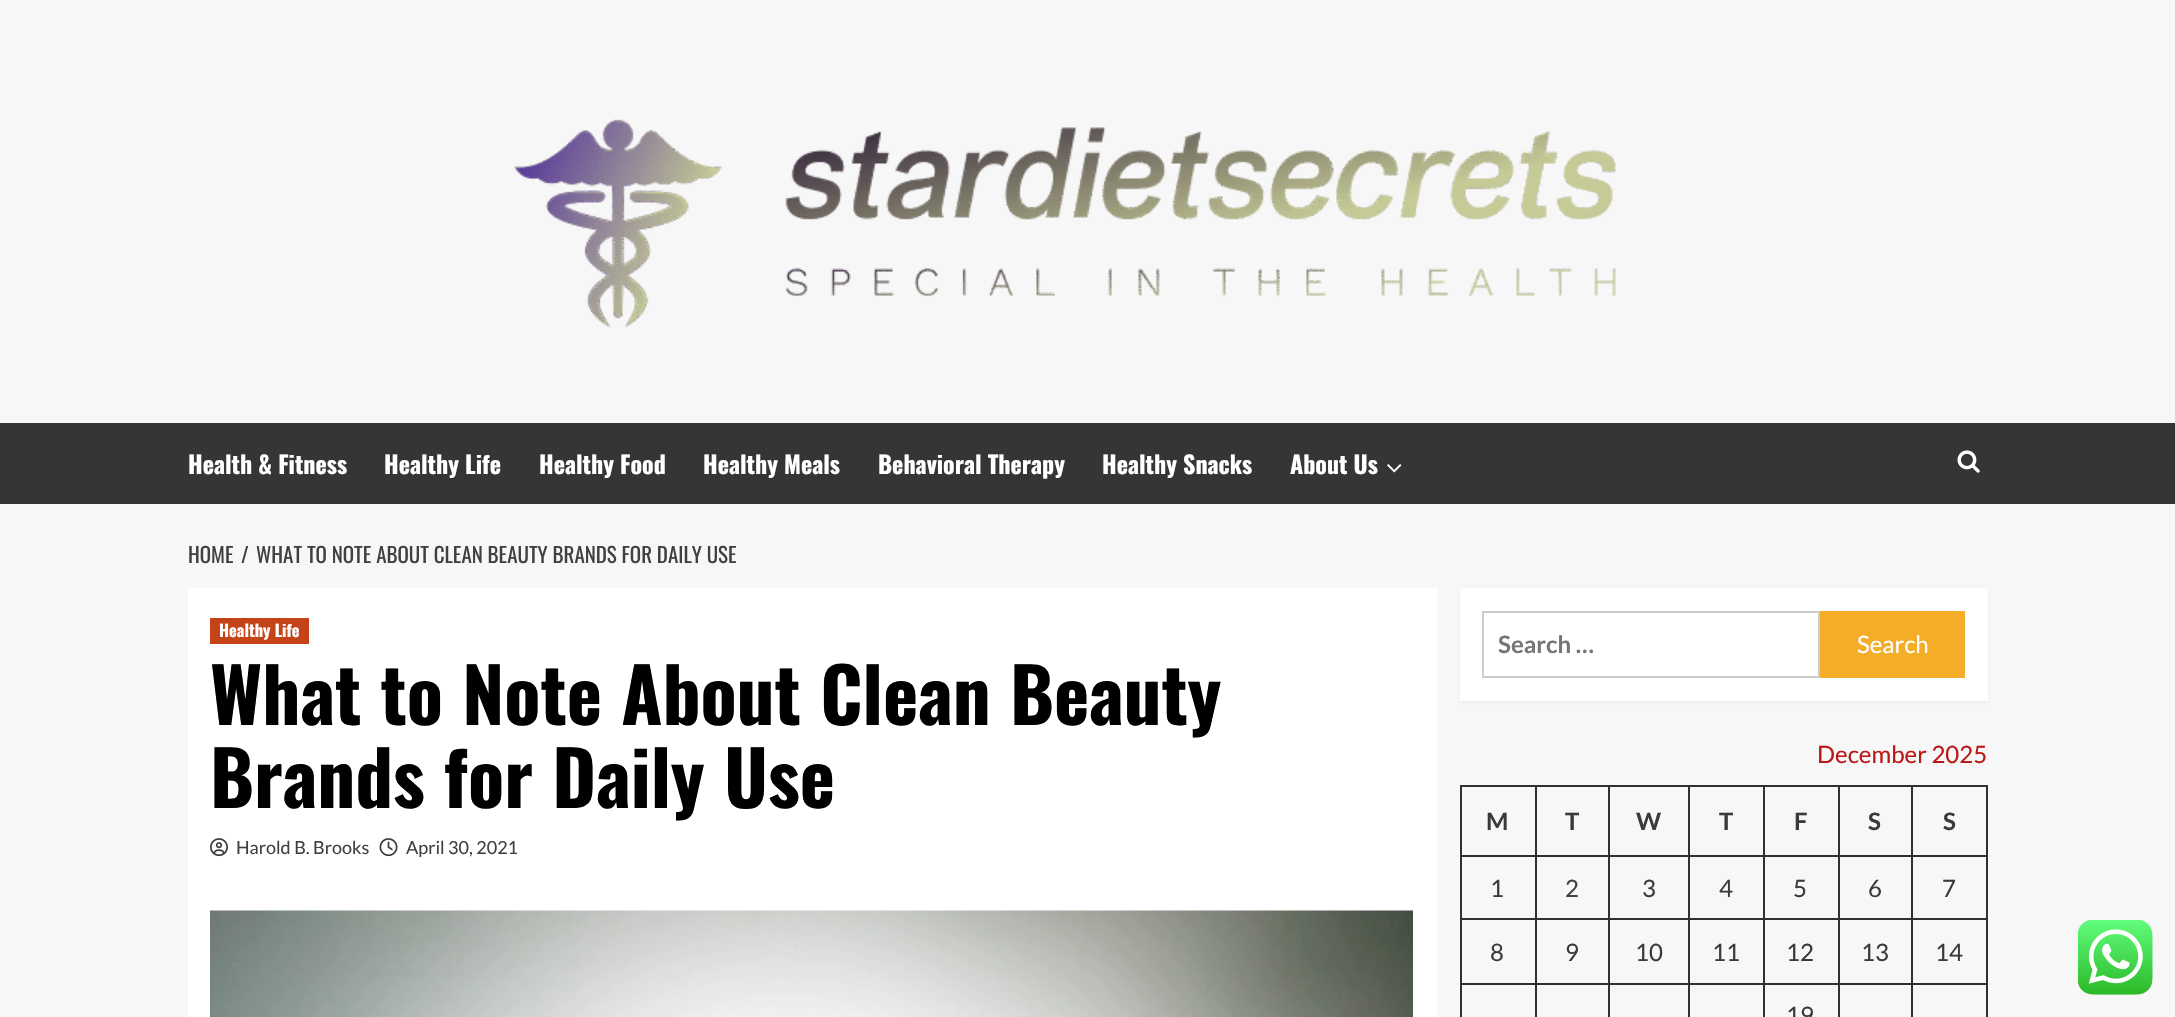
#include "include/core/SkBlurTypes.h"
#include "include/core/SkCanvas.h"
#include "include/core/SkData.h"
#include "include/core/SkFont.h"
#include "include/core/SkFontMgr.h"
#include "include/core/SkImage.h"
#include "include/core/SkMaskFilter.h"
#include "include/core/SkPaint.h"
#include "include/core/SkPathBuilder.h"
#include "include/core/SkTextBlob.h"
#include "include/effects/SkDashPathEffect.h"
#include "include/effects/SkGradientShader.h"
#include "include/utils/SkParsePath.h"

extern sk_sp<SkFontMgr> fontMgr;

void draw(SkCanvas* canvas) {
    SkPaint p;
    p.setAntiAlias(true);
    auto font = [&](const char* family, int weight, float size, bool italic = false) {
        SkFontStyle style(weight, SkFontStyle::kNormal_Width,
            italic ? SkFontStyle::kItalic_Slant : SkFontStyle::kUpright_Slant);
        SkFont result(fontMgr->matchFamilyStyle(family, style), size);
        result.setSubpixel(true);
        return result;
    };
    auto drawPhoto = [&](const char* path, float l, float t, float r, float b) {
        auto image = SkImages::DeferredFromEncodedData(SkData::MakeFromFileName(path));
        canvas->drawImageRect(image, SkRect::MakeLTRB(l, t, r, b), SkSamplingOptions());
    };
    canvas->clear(0xFFF7F7F7);
    drawPhoto("media/1.png", 514, 119, 1616, 328);
    p.setColor(0xFF353535);
    canvas->drawRect(SkRect::MakeLTRB(0, 423, 2175, 504), p);
    auto font1 = font("Oswald", 700, 24);
    p.setColor(0xFFFFFFFF);
    {
        const struct { const char* s; float x, y; } items[] = {
            {"Health & Fitness", 188, 474},
            {"Healthy Life", 384, 474},
            {"Healthy Food", 539, 474},
            {"Healthy Meals", 703, 474},
            {"Behavioral Therapy", 878, 474},
            {"Healthy Snacks", 1102, 474},
            {"About Us", 1290, 474},
        };
        for (auto [s, x, y] : items) {
            canvas->drawString(s, x, y, font1, p);
        }
    }
    drawPhoto("media/2.png", 1387, 464, 1402, 473);
    drawPhoto("media/3.png", 1957, 450, 1980, 473);
    auto font2 = font("Oswald", 400, 21);
    p.setColor(0xFF404040);
    {
        const struct { const char* s; float x, y; } items[] = {
            {"HOME", 188, 563},
            {"/", 241, 563},
            {"WHAT TO NOTE ABOUT CLEAN BEAUTY BRANDS FOR DAILY USE", 256, 563},
        };
        for (auto [s, x, y] : items) {
            canvas->drawString(s, x, y, font2, p);
        }
    }
    p.setColor(0xFFFFFFFF);
    canvas->drawRect(SkRect::MakeLTRB(188, 588, 1437, 1017), p);
    p.setColor(0xFFC44318);
    canvas->drawRect(SkRect::MakeLTRB(210, 618, 309, 644), p);
    auto font3 = font("Oswald", 700, 16.5f);
    p.setColor(0xFFFFFFFF);
    canvas->drawString("Healthy Life", 219, 637, font3, p);
    auto font4 = font("Oswald", 700, 75);
    p.setColor(0xFF000000);
    canvas->drawString("What to Note About Clean Beauty", 210, 725, font4, p);
    canvas->drawString("Brands for Daily Use", 210, 808, font4, p);
    drawPhoto("media/4.png", 210, 838, 228, 857);
    auto font5 = font("Lato", 400, 18);
    p.setColor(0xFF404040);
    canvas->drawString("Harold B. Brooks", 236, 854, font5, p);
    drawPhoto("media/5.png", 379, 838, 398, 857);
    canvas->drawString("April 30, 2021", 406, 854, font5, p);
    drawPhoto("media/6.png", 210, 910, 1413, 1017);
    p.setColor(0x0D000000);
    p.setMaskFilter(SkMaskFilter::MakeBlur(kNormal_SkBlurStyle, 1.5f));
    canvas->drawRect(SkRect::MakeLTRB(1460, 590, 1988, 702), p);
    p.setMaskFilter(nullptr);
    p.setColor(0xFFFFFFFF);
    canvas->drawRect(SkRect::MakeLTRB(1460, 588, 1988, 701), p);
    p.setStyle(SkPaint::kStroke_Style);
    p.setStrokeWidth(2);
    p.setColor(0xFFCCCCCC);
    canvas->drawRect(SkRect::MakeLTRB(1483, 612, 1819, 677), p);
    canvas->save();
    canvas->clipRect(SkRect::MakeLTRB(1499, 630, 1797, 659));
    auto font6 = font("Lato", 700, 24);
    p.setStyle(SkPaint::kFill_Style);
    p.setColor(0xFF757575);
    canvas->drawString("Search …", 1498, 653, font6, p);
    canvas->restore();
    p.setColor(0xFFF3AD29);
    canvas->drawRect(SkRect::MakeLTRB(1820, 611, 1965, 678), p);
    auto font7 = font("Lato", 400, 24);
    p.setColor(0xFFFFFFFF);
    canvas->drawString("Search", 1857, 653, font7, p);
    p.setColor(0xFFBB1919);
    canvas->drawString("December 2025", 1817, 763, font7, p);
    {
        const struct { float l, t, r, b; SkColor color; } items[] = {
            {1911, 785, 1988, 787, 0xFF313131},
            {1911, 855, 1988, 857, 0xFF313131},
            {1911, 918, 1988, 920, 0xFF313131},
            {1911, 983, 1988, 985, 0xFF313131},
            {1911, 983, 1913, 1017, 0xFF313131},
            {1838, 983, 1913, 985, 0xFF313131},
            {1911, 918, 1913, 984, 0xFF313131},
            {1838, 918, 1913, 920, 0xFF313131},
            {1911, 855, 1913, 920, 0xFF313131},
            {1838, 855, 1913, 857, 0xFF313131},
            {1911, 785, 1913, 857, 0xFF313131},
            {1838, 785, 1913, 787, 0xFF313131},
            {1838, 983, 1840, 1017, 0xFF313131},
            {1763, 983, 1839, 985, 0xFF313131},
            {1838, 918, 1840, 984, 0xFF313131},
            {1763, 918, 1839, 920, 0xFF313131},
            {1838, 855, 1840, 920, 0xFF313131},
            {1763, 855, 1839, 857, 0xFF313131},
            {1838, 785, 1840, 857, 0xFF313131},
            {1763, 785, 1839, 787, 0xFF313131},
            {1763, 983, 1765, 1017, 0xFF313131},
            {1688, 983, 1764, 985, 0xFF313131},
            {1763, 918, 1765, 984, 0xFF313131},
            {1688, 918, 1764, 920, 0xFF313131},
            {1763, 855, 1765, 920, 0xFF313131},
            {1688, 855, 1764, 857, 0xFF313131},
            {1763, 785, 1765, 857, 0xFF313131},
            {1688, 785, 1764, 787, 0xFF313131},
            {1688, 983, 1690, 1017, 0xFF313131},
            {1608, 983, 1689, 985, 0xFF313131},
            {1688, 918, 1690, 984, 0xFF313131},
            {1608, 918, 1689, 920, 0xFF313131},
            {1688, 855, 1690, 920, 0xFF313131},
            {1608, 855, 1689, 857, 0xFF313131},
            {1688, 785, 1690, 857, 0xFF313131},
            {1608, 785, 1689, 787, 0xFF313131},
            {1608, 983, 1610, 1017, 0xFF313131},
            {1535, 983, 1610, 985, 0xFF313131},
            {1608, 918, 1610, 984, 0xFF313131},
            {1535, 918, 1610, 920, 0xFF313131},
            {1608, 855, 1610, 920, 0xFF313131},
            {1535, 855, 1610, 857, 0xFF313131},
            {1608, 785, 1610, 857, 0xFF313131},
            {1535, 785, 1610, 787, 0xFF313131},
            {1535, 983, 1537, 1017, 0xFF313131},
            {1460, 983, 1536, 985, 0xFF313131},
            {1535, 918, 1537, 984, 0xFF313131},
            {1460, 918, 1536, 920, 0xFF313131},
            {1535, 855, 1537, 920, 0xFF313131},
            {1460, 855, 1536, 857, 0xFF313131},
            {1535, 785, 1537, 857, 0xFF313131},
            {1460, 785, 1536, 787, 0xFF313131},
            {1460, 983, 1462, 1017, 0xFF313131},
            {1460, 918, 1462, 984, 0xFF313131},
            {1460, 855, 1462, 920, 0xFF313131},
            {1460, 785, 1462, 857, 0xFF313131},
        };
        for (auto [l, t, r, b, color] : items) {
            p.setColor(color);
            canvas->drawRect(SkRect::MakeLTRB(l, t, r, b), p);
        }
    }
    p.setColor(0xFF3A3A3A);
    {
        const struct { const char* s; float x, y; } items[] = {
            {"M", 1486, 830},
            {"T", 1565, 830},
            {"W", 1636, 830},
            {"T", 1719, 830},
            {"F", 1794, 830},
            {"S", 1868, 830},
        };
        for (auto [s, x, y] : items) {
            canvas->drawString(s, x, y, font6, p);
        }
    }
    {
        const struct { float l, t, r, b; SkColor color; } items[] = {
            {1986, 983, 1988, 1017, 0xFF313131},
            {1986, 918, 1988, 984, 0xFF313131},
            {1986, 855, 1988, 920, 0xFF313131},
            {1986, 785, 1988, 857, 0xFF313131},
        };
        for (auto [l, t, r, b, color] : items) {
            p.setColor(color);
            canvas->drawRect(SkRect::MakeLTRB(l, t, r, b), p);
        }
    }
    p.setColor(0xFF3A3A3A);
    canvas->drawString("S", 1943, 830, font6, p);
    canvas->drawString("1", 1490, 897, font7, p);
    p.setColor(0xFF404040);
    canvas->drawString("2", 1565, 897, font7, p);
    p.setColor(0xFF3A3A3A);
    {
        const struct { const char* s; float x, y; } items[] = {
            {"3", 1642, 897},
            {"4", 1719, 897},
            {"5", 1793, 897},
            {"6", 1868, 897},
            {"7", 1942, 897},
            {"8", 1490, 961},
            {"9", 1565, 961},
            {"10", 1635, 961},
            {"11", 1712, 961},
            {"12", 1786, 961},
            {"13", 1861, 961},
            {"14", 1935, 961},
            {"19", 1786, 1024},
        };
        for (auto [s, x, y] : items) {
            canvas->drawString(s, x, y, font7, p);
        }
    }
    drawPhoto("media/7.png", 2078, 920, 2153, 995);
}
